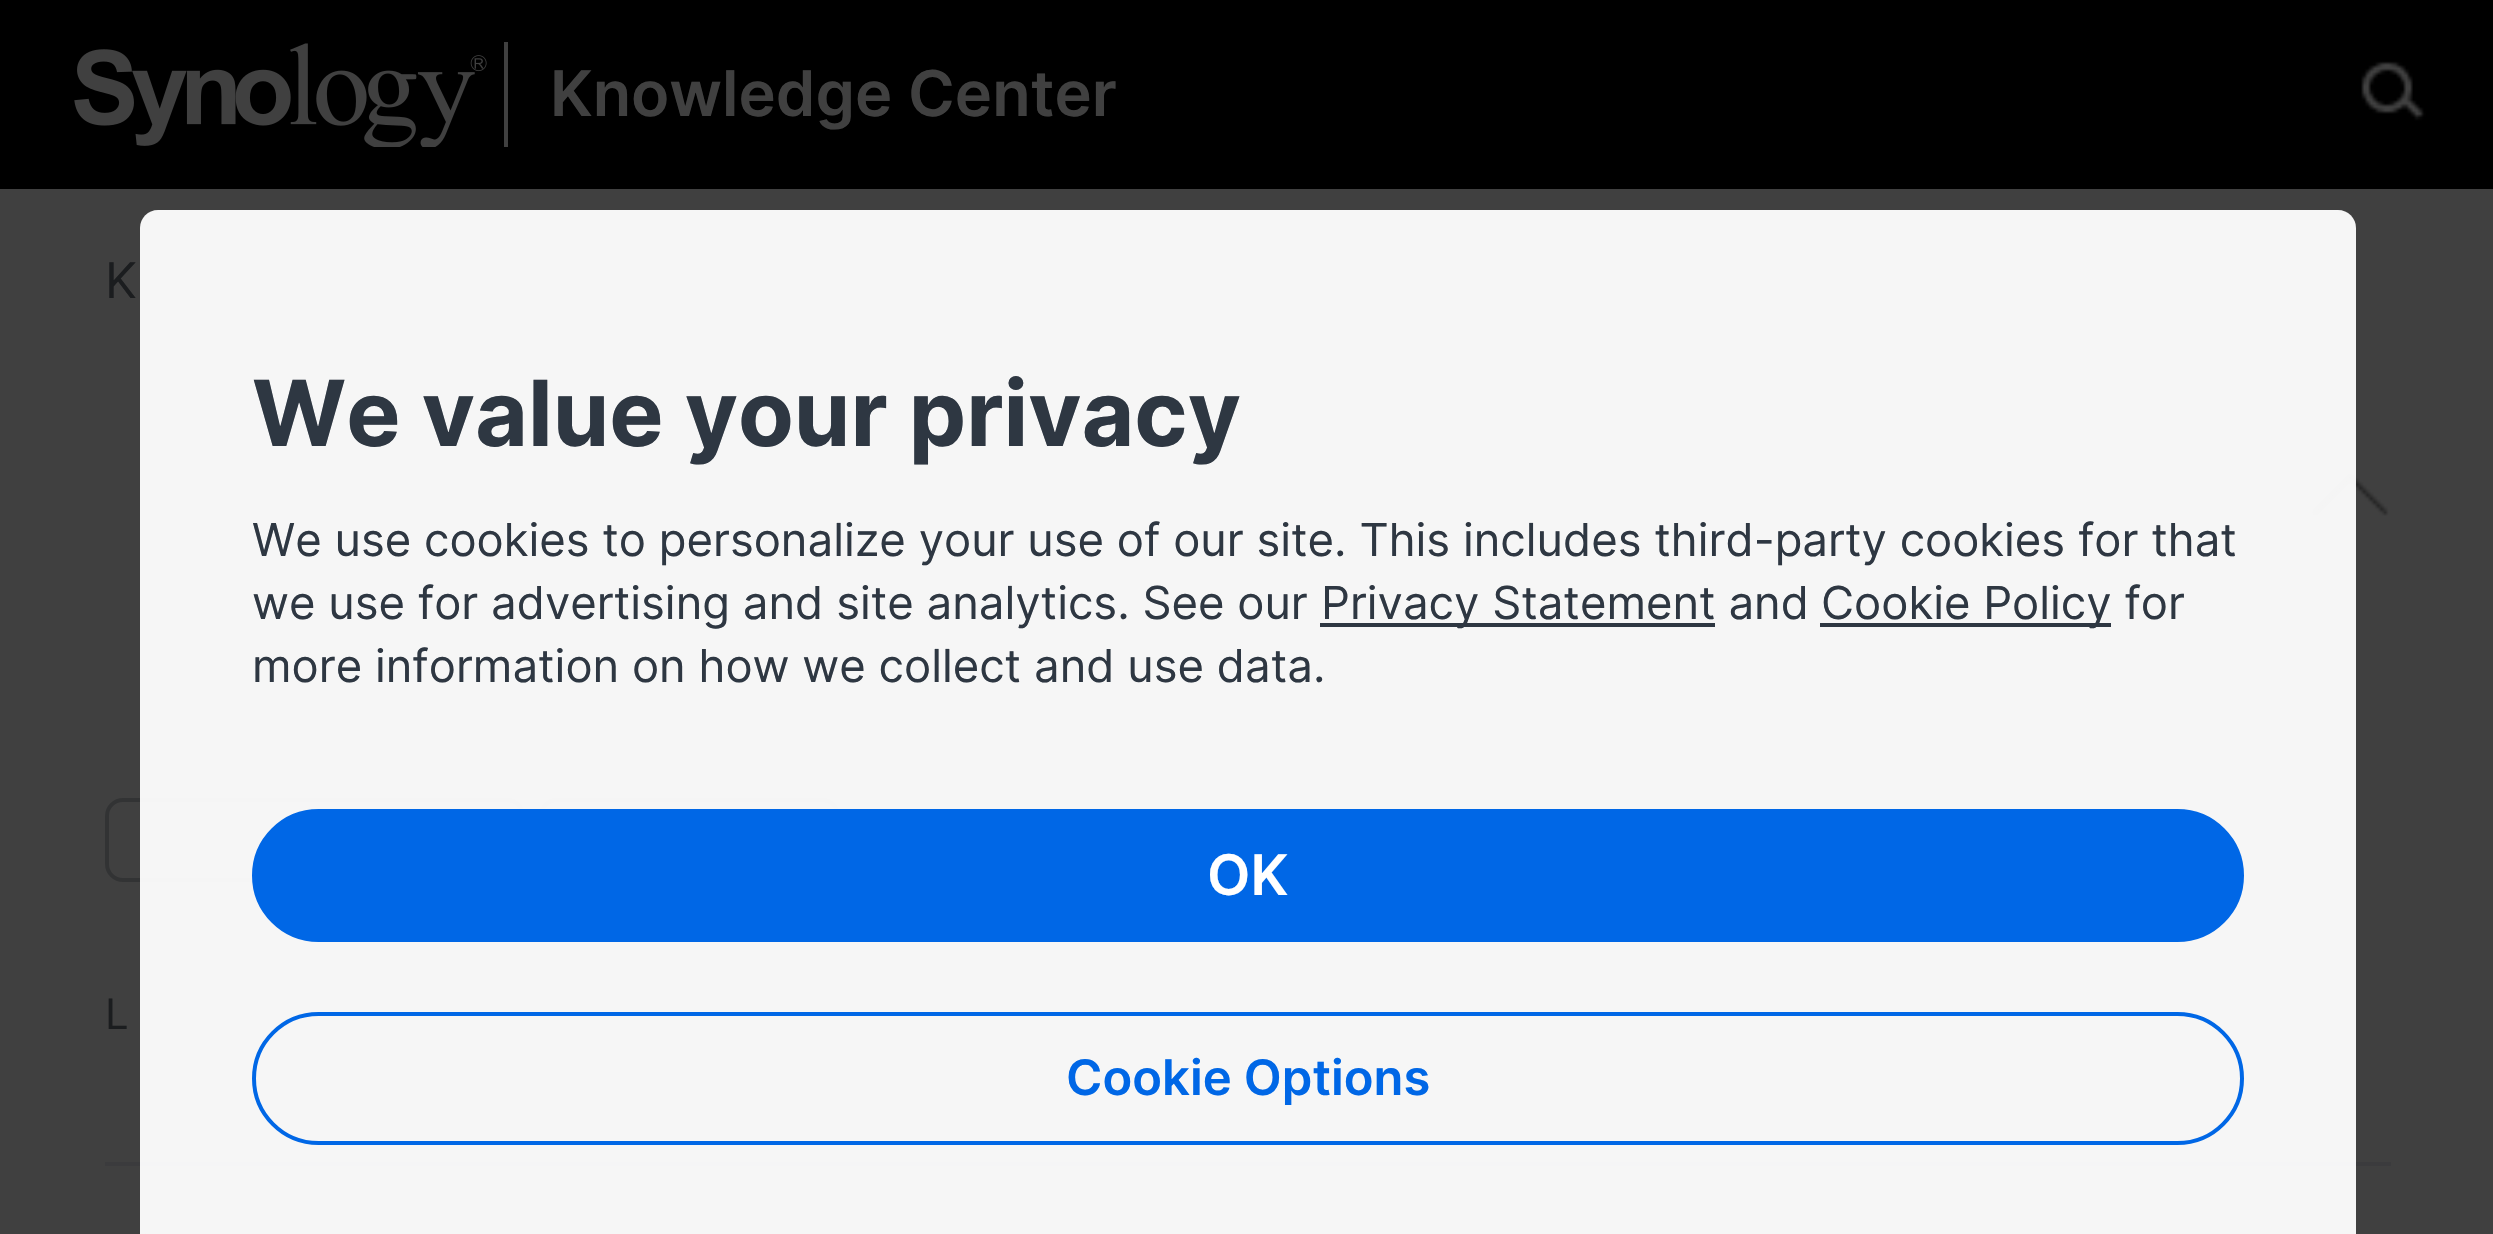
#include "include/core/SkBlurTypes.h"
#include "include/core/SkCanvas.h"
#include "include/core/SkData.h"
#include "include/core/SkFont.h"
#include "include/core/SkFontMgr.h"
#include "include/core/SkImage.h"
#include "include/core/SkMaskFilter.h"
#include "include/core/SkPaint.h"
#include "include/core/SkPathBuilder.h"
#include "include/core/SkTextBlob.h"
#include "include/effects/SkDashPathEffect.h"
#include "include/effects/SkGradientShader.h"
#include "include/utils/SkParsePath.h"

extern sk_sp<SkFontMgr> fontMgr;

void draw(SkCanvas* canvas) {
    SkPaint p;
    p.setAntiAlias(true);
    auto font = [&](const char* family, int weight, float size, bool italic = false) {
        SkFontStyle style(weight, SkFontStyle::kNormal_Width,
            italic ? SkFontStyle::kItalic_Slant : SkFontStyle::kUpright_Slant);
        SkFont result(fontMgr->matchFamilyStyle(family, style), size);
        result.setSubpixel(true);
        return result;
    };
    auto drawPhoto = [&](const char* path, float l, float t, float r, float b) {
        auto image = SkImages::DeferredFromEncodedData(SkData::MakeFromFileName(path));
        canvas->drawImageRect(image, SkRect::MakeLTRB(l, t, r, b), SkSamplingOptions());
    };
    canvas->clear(0xFF404040);
    p.setColor(0xFF000000);
    canvas->drawRect(SkRect::MakeLTRB(0, 0, 2493, 189), p);
    drawPhoto("media/1.png", 74, 43, 487, 147);
    p.setColor(0xFF404040);
    canvas->drawRect(SkRect::MakeLTRB(504, 42, 508, 147), p);
    auto font1 = font("Inter", 600, 63);
    canvas->drawString("Knowledge Center", 550, 116, font1, p);
    drawPhoto("media/2.png", 2361, 61, 2426, 121);
    auto font2 = font("Inter", 400, 49);
    p.setColor(0xFF1B1D1F);
    canvas->drawString("K", 105, 298, font2, p);
    drawPhoto("media/3.png", 2312, 472, 2389, 516);
    p.setStyle(SkPaint::kStroke_Style);
    p.setStrokeWidth(4);
    p.setColor(0xFF323334);
    canvas->drawRoundRect(SkRect::MakeLTRB(107, 800, 523, 880), 16, 16, p);
    canvas->drawRoundRect(SkRect::MakeLTRB(541, 800, 838, 880), 16, 16, p);
    auto font3 = font("Inter", 400, 42);
    p.setStyle(SkPaint::kFill_Style);
    p.setColor(0xFF1B1D1F);
    canvas->drawString("L", 105, 1029, font3, p);
    p.setColor(0xFF3B3B3D);
    canvas->drawRect(SkRect::MakeLTRB(105, 1162, 2391, 1166), p);
    drawPhoto("media/4.png", 143, 1231, 148, 1234);
    p.setColor(0xF2FFFFFF);
    canvas->drawPath(SkPathBuilder().moveTo(158, 210).lineTo(2338, 210).cubicTo(2348, 210, 2356, 218, 2356, 228).lineTo(2356, 697).lineTo(140, 697).lineTo(140, 228).cubicTo(140, 218, 148, 210, 158, 210).close().detach(), p);
    auto font4 = font("Inter", 700, 91);
    p.setColor(0xFF2E3742);
    canvas->drawString("We value your privacy", 252, 446, font4, p);
    auto font5 = font("Inter", 400, 45.5f);
    canvas->drawString("We use cookies to personalize your use of our site. This includes third-party cookies for that", 252, 556, font5, p);
    canvas->drawString("we use for advertising and site analytics. See our", 252, 619, font5, p);
    canvas->drawRect(SkRect::MakeLTRB(1320, 623, 1715, 627), p);
    canvas->drawString("Privacy Statement and", 1321, 619, font5, p);
    canvas->drawRect(SkRect::MakeLTRB(1820, 623, 2111, 627), p);
    canvas->drawString("Cookie Policy for", 1821, 619, font5, p);
    canvas->drawString("more information on how we collect and use data.", 252, 682, font5, p);
    p.setColor(0xF2FFFFFF);
    canvas->drawRect(SkRect::MakeLTRB(140, 697, 2356, 1234), p);
    p.setColor(0xFF0067E6);
    canvas->drawRoundRect(SkRect::MakeLTRB(254, 811, 2242, 940), 64.5f, 64.5f, p);
    p.setStyle(SkPaint::kStroke_Style);
    canvas->drawRoundRect(SkRect::MakeLTRB(254, 811, 2242, 940), 64.5f, 64.5f, p);
    auto font6 = font("Inter", 600, 56);
    p.setStyle(SkPaint::kFill_Style);
    p.setColor(0xFFFFFFFF);
    canvas->drawString("OK", 1207, 895, font6, p);
    p.setStyle(SkPaint::kStroke_Style);
    p.setColor(0xFF0067E6);
    canvas->drawRoundRect(SkRect::MakeLTRB(254, 1014, 2242, 1143), 64.5f, 64.5f, p);
    auto font7 = font("Inter", 600, 49);
    p.setStyle(SkPaint::kFill_Style);
    canvas->drawString("Cookie Options", 1066, 1095, font7, p);
}
